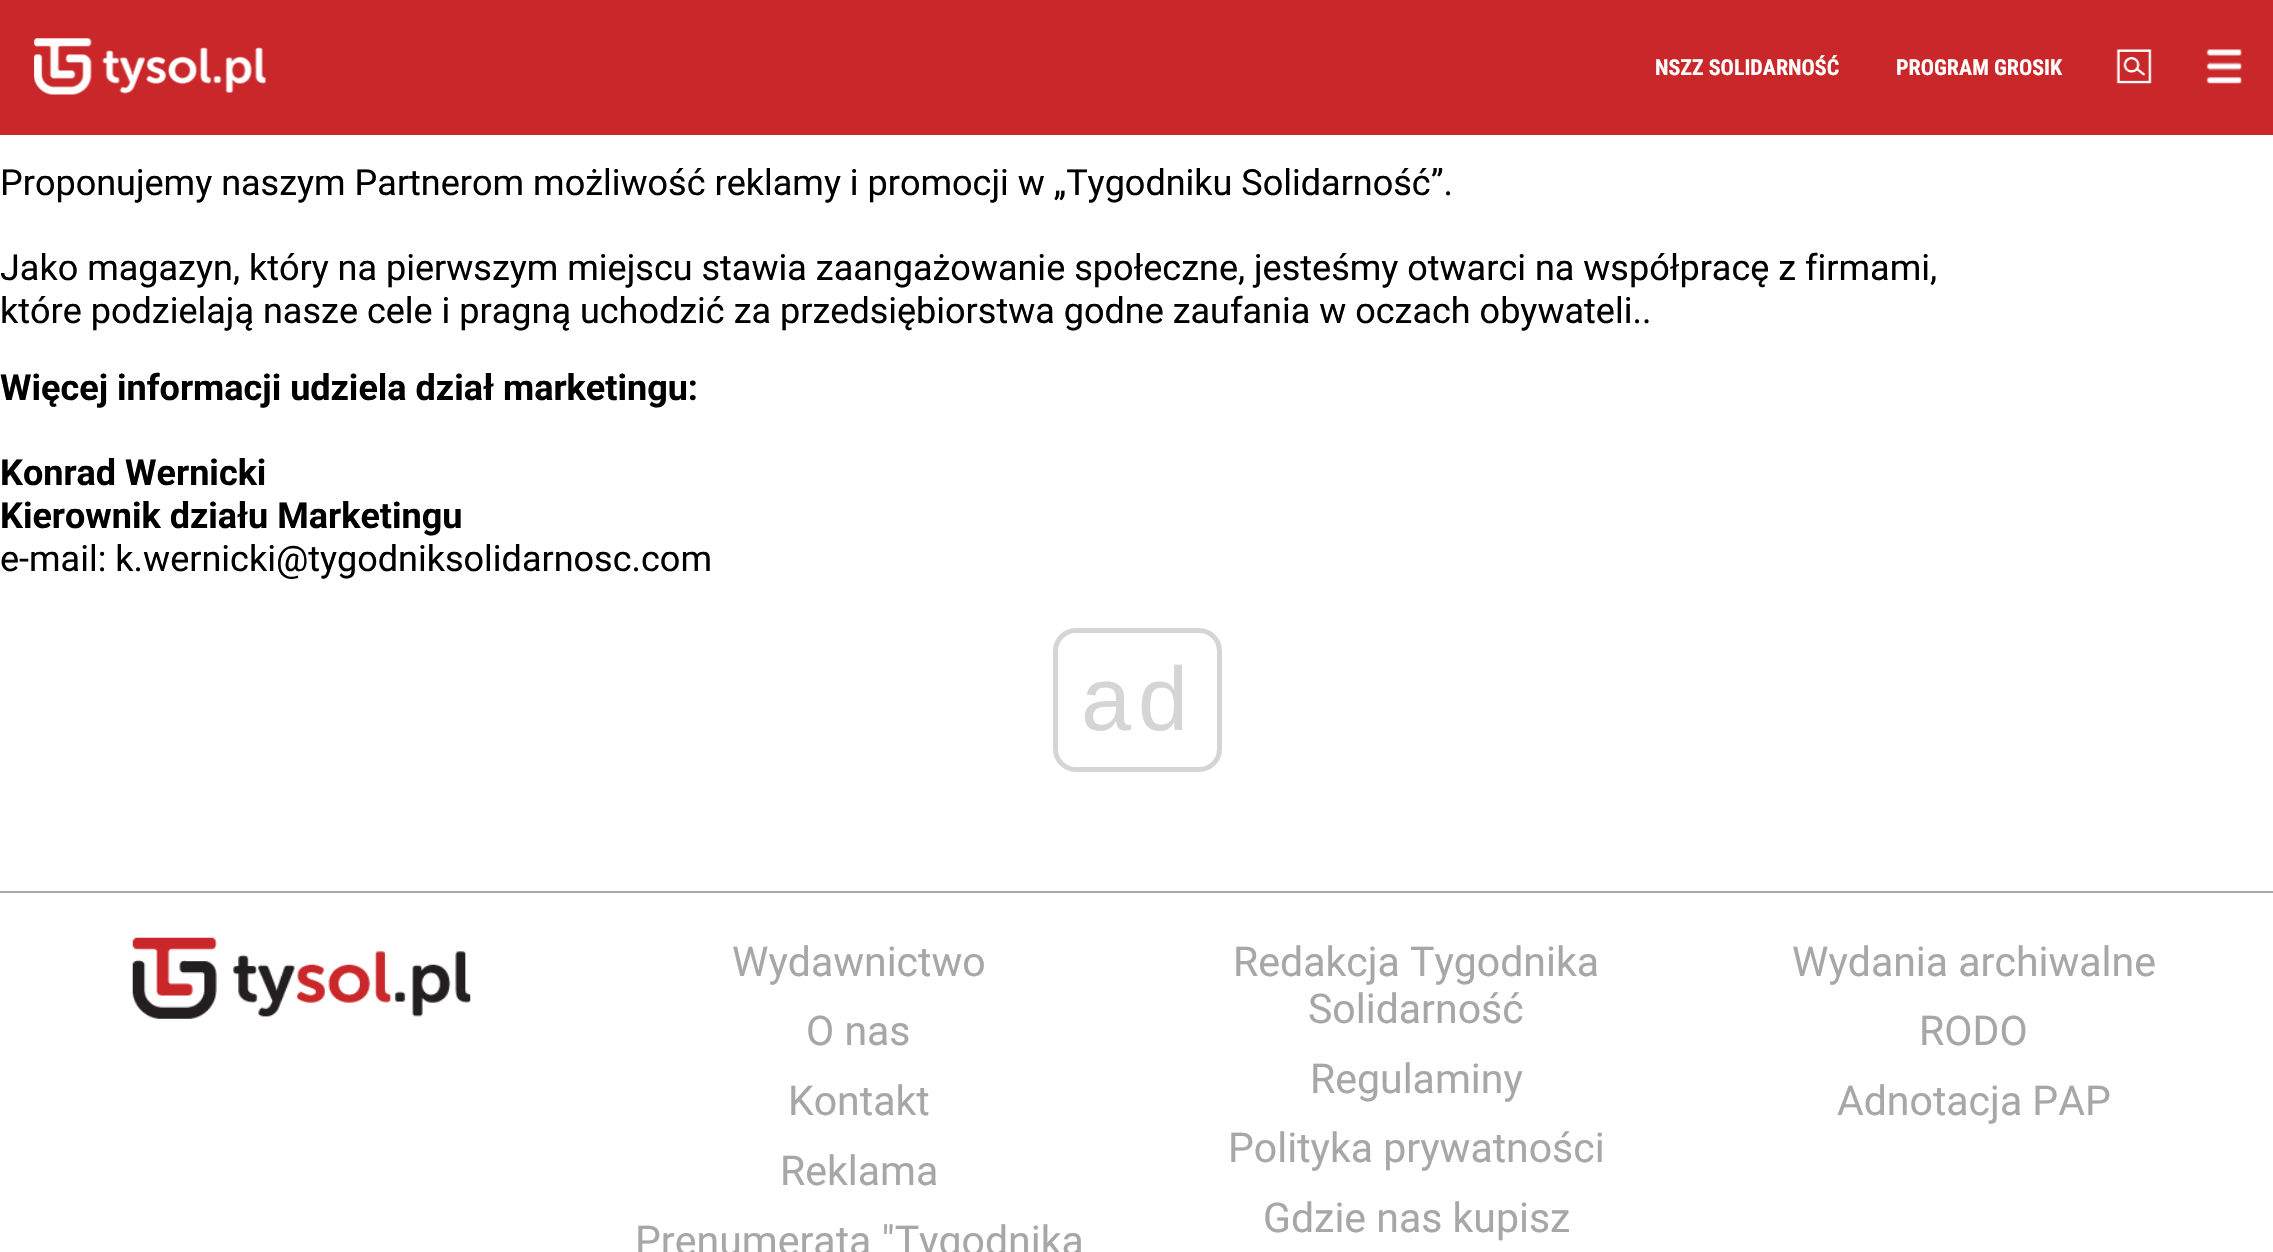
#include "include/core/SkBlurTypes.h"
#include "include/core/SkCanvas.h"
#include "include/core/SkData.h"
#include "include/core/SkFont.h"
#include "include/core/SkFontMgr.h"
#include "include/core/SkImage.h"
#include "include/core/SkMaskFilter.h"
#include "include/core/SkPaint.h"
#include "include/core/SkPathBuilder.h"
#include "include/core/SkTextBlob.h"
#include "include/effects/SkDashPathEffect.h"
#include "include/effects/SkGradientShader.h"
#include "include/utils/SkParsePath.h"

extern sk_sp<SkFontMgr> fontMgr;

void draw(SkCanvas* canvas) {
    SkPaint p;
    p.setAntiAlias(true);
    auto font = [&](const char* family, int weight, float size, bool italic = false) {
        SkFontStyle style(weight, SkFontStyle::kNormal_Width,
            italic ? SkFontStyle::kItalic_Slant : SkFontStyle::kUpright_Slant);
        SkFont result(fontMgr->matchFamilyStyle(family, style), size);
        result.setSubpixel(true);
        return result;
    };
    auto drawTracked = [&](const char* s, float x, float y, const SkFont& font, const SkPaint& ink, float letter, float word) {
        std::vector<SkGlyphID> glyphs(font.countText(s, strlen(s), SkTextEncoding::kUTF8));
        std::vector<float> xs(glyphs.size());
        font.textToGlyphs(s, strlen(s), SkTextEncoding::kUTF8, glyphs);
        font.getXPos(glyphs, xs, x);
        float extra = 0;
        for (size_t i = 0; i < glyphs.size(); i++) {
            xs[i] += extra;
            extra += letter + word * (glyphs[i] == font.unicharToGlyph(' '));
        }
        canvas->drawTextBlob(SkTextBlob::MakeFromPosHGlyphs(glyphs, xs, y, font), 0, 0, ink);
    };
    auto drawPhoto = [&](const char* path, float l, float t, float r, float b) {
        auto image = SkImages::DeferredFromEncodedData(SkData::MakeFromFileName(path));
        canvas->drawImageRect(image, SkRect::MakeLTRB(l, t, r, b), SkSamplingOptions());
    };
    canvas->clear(0xFFFFFFFF);
    p.setColor(0xFFC92729);
    canvas->drawRect(SkRect::MakeLTRB(0, 0, 2273, 135), p);
    drawPhoto("media/1.png", 34, 38, 266, 95);
    auto font1 = font("Roboto Condensed", 700, 22);
    p.setColor(0xFFFFFFFF);
    canvas->drawString("NSZZ SOLIDARNOŚĆ", 1655, 75, font1, p);
    canvas->drawString("PROGRAM GROSIK", 1896, 75, font1, p);
    drawPhoto("media/2.png", 2116, 49, 2152, 84);
    drawPhoto("media/3.png", 2206, 49, 2242, 84);
    auto font2 = font("Roboto", 400, 36);
    p.setColor(0xFF000000);
    {
        const struct { const char* s; float x, y; } items[] = {
            {"Proponujemy naszym Partnerom możliwość reklamy i promocji w „Tygodniku Solidarność”.", 0, 195},
            {"Jako magazyn, który na pierwszym miejscu stawia zaangażowanie społeczne, jesteśmy otwarci na współpracę z firmami,", 0, 280},
            {"które podzielają nasze cele i pragną uchodzić za przedsiębiorstwa godne zaufania w oczach obywateli..", 0, 323},
        };
        for (auto [s, x, y] : items) {
            canvas->drawString(s, x, y, font2, p);
        }
    }
    auto font3 = font("Roboto", 700, 36);
    {
        const struct { const char* s; float x, y; } items[] = {
            {"Więcej informacji udziela dział marketingu:", 0, 400},
            {"Konrad Wernicki", 0, 485},
            {"Kierownik działu Marketingu", 0, 528},
        };
        for (auto [s, x, y] : items) {
            canvas->drawString(s, x, y, font3, p);
        }
    }
    canvas->drawString("e-mail: k.wernicki@tygodniksolidarnosc.com", 0, 571, font2, p);
    p.setStyle(SkPaint::kStroke_Style);
    p.setStrokeWidth(5);
    p.setColor(0xFFD5D5D5);
    canvas->drawRoundRect(SkRect::MakeLTRB(1055.5f, 630.5f, 1219.5f, 769.5f), 20.5f, 20.5f, p);
    auto font4 = font("Liberation Sans", 400, 90);
    p.setStyle(SkPaint::kFill_Style);
    drawTracked("ad", 1081, 730, font4, p, 7, 0);
    p.setColor(0xFFA7A7A7);
    canvas->drawRect(SkRect::MakeLTRB(0, 891, 2273, 893), p);
    drawPhoto("media/4.png", 132, 937, 471, 1019);
    auto font5 = font("Roboto", 400, 41);
    {
        const struct { const char* s; float x, y; } items[] = {
            {"Wydawnictwo", 732, 976},
            {"O nas", 806, 1045},
            {"Kontakt", 788, 1115},
            {"Reklama", 780, 1185},
            {"Prenumerata \"Tygodnika", 635, 1255},
            {"Redakcja Tygodnika", 1233, 976},
            {"Solidarność", 1308, 1023},
            {"Regulaminy", 1310, 1093},
            {"Polityka prywatności", 1228, 1162},
            {"Gdzie nas kupisz", 1263, 1232},
            {"Wydania archiwalne", 1792, 976},
            {"RODO", 1919, 1045},
            {"Adnotacja PAP", 1837, 1115},
        };
        for (auto [s, x, y] : items) {
            canvas->drawString(s, x, y, font5, p);
        }
    }
}
